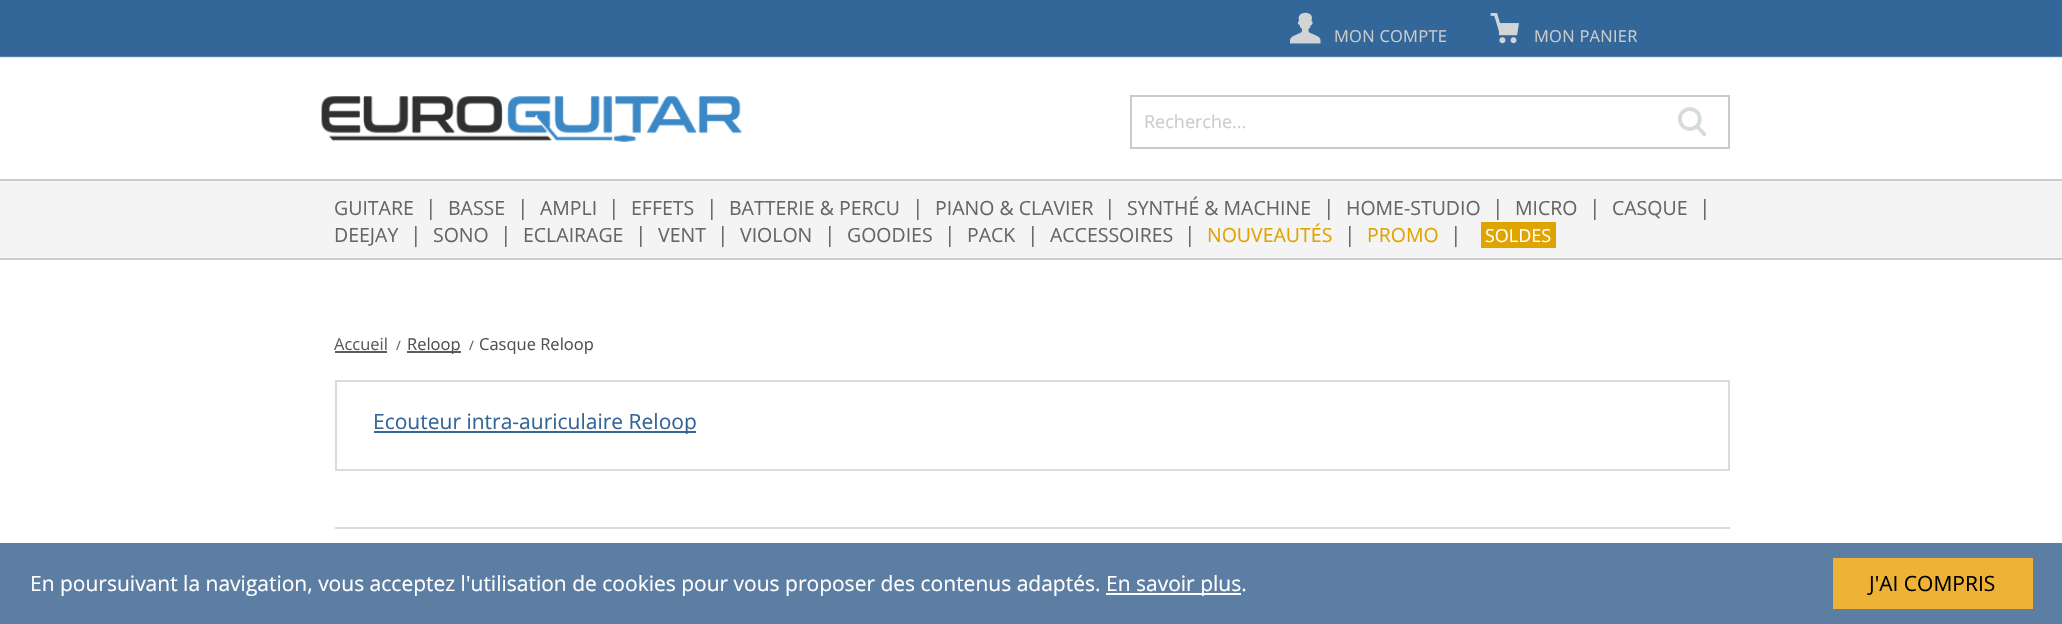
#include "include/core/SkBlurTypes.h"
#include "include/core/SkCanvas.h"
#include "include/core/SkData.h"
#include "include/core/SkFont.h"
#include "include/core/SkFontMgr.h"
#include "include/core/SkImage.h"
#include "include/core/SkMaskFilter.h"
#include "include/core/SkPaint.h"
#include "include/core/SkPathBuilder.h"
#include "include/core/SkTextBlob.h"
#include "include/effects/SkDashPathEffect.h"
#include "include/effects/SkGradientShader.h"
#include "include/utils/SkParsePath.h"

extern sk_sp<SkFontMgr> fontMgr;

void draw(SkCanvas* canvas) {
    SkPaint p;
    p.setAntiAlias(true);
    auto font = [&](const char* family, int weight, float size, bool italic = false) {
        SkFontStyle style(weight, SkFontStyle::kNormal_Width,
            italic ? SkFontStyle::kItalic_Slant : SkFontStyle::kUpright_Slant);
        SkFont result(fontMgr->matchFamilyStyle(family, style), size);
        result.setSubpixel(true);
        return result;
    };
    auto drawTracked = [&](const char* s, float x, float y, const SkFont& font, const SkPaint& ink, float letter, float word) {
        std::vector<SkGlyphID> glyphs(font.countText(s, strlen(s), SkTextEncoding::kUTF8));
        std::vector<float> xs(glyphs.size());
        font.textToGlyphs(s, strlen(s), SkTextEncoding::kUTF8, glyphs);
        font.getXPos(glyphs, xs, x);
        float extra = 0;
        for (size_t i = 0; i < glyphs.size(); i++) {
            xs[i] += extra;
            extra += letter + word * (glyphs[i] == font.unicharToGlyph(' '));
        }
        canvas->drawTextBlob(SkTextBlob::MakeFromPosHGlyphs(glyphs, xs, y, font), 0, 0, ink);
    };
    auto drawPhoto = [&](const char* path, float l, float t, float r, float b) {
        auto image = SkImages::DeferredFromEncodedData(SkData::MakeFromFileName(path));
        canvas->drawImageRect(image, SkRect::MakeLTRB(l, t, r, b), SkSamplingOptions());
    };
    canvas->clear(0xFFFFFFFF);
    drawPhoto("media/1.png", 0, 0, 2062, 58);
    drawPhoto("media/2.png", 1290, 12, 1321, 44);
    auto font1 = font("Open Sans", 400, 16.5f);
    p.setColor(0xFFCCCCCC);
    drawTracked("MON COMPTE", 1334, 42, font1, p, 0.25f, 0);
    drawPhoto("media/3.png", 1490, 13, 1519, 44);
    drawTracked("MON PANIER", 1534, 42, font1, p, 0.25f, 0);
    drawPhoto("media/4.png", 321, 96, 742, 142);
    p.setStyle(SkPaint::kStroke_Style);
    p.setStrokeWidth(2);
    p.setColor(0xFFCACACA);
    canvas->drawRect(SkRect::MakeLTRB(1131, 96, 1729, 148), p);
    auto font2 = font("Open Sans", 400, 18);
    p.setStyle(SkPaint::kFill_Style);
    p.setColor(0xFFCCCCCC);
    canvas->drawString("Recherche...", 1144, 128, font2, p);
    drawPhoto("media/5.png", 1678, 107, 1706, 136);
    {
        const struct { float l, t, r, b; SkColor color; } items[] = {
            {0, 181, 2062, 258, 0xFFF4F4F4},
            {0, 179, 2062, 181, 0xFFCCCCCC},
            {0, 258, 2062, 260, 0xFFCCCCCC},
        };
        for (auto [l, t, r, b, color] : items) {
            p.setColor(color);
            canvas->drawRect(SkRect::MakeLTRB(l, t, r, b), p);
        }
    }
    auto font3 = font("Open Sans", 400, 19.5f);
    p.setColor(0xFF666666);
    canvas->drawString("GUITARE", 334, 215, font3, p);
    auto font4 = font("Open Sans", 400, 21);
    canvas->drawString("|", 425, 215, font4, p);
    canvas->drawString("BASSE", 448, 215, font3, p);
    canvas->drawString("|", 517, 215, font4, p);
    canvas->drawString("AMPLI", 540, 215, font3, p);
    canvas->drawString("|", 608, 215, font4, p);
    canvas->drawString("EFFETS", 631, 215, font3, p);
    canvas->drawString("|", 706, 215, font4, p);
    canvas->drawString("BATTERIE & PERCU", 729, 215, font3, p);
    canvas->drawString("|", 912, 215, font4, p);
    canvas->drawString("PIANO & CLAVIER", 935, 215, font3, p);
    canvas->drawString("|", 1104, 215, font4, p);
    canvas->drawString("SYNTHÉ & MACHINE", 1127, 215, font3, p);
    canvas->drawString("|", 1323, 215, font4, p);
    canvas->drawString("HOME-STUDIO", 1346, 215, font3, p);
    canvas->drawString("|", 1492, 215, font4, p);
    canvas->drawString("MICRO", 1515, 215, font3, p);
    canvas->drawString("|", 1589, 215, font4, p);
    canvas->drawString("CASQUE", 1612, 215, font3, p);
    canvas->drawString("|", 1699, 215, font4, p);
    canvas->drawString("DEEJAY", 334, 242, font3, p);
    canvas->drawString("|", 410, 242, font4, p);
    canvas->drawString("SONO", 433, 242, font3, p);
    canvas->drawString("|", 500, 242, font4, p);
    canvas->drawString("ECLAIRAGE", 523, 242, font3, p);
    canvas->drawString("|", 635, 242, font4, p);
    canvas->drawString("VENT", 658, 242, font3, p);
    canvas->drawString("|", 717, 242, font4, p);
    canvas->drawString("VIOLON", 740, 242, font3, p);
    canvas->drawString("|", 824, 242, font4, p);
    canvas->drawString("GOODIES", 847, 242, font3, p);
    canvas->drawString("|", 944, 242, font4, p);
    canvas->drawString("PACK", 967, 242, font3, p);
    canvas->drawString("|", 1027, 242, font4, p);
    canvas->drawString("ACCESSOIRES", 1050, 242, font3, p);
    canvas->drawString("|", 1184, 242, font4, p);
    p.setColor(0xFFE0A400);
    canvas->drawString("NOUVEAUTÉS", 1207, 242, font3, p);
    p.setColor(0xFF666666);
    canvas->drawString("|", 1344, 242, font4, p);
    p.setColor(0xFFE0A400);
    canvas->drawString("PROMO", 1367, 242, font3, p);
    p.setColor(0xFF666666);
    canvas->drawString("|", 1450, 242, font4, p);
    p.setColor(0xFFE0A400);
    canvas->drawRect(SkRect::MakeLTRB(1481, 222, 1556, 248), p);
    p.setColor(0xFFFFFFFF);
    canvas->drawString("SOLDES", 1485, 242, font2, p);
    p.setColor(0xFF5C5C5C);
    canvas->drawString("Accueil", 334, 350, font1, p);
    canvas->drawRect(SkRect::MakeLTRB(335, 351, 387, 353), p);
    auto font5 = font("Open Sans", 400, 13);
    canvas->drawString("/", 396, 350, font5, p);
    canvas->drawRect(SkRect::MakeLTRB(407, 351, 461, 353), p);
    p.setColor(0xFF515151);
    canvas->drawString("Reloop", 407, 350, font1, p);
    p.setColor(0xFF5C5C5C);
    canvas->drawString("/", 469, 350, font5, p);
    p.setColor(0xFF515151);
    canvas->drawString("Casque Reloop", 479, 350, font1, p);
    p.setStyle(SkPaint::kStroke_Style);
    p.setColor(0xFFDBDBDB);
    canvas->drawRect(SkRect::MakeLTRB(336, 381, 1729, 470), p);
    p.setStyle(SkPaint::kFill_Style);
    p.setColor(0xFF336699);
    canvas->drawRect(SkRect::MakeLTRB(374, 431, 696, 433), p);
    canvas->drawString("Ecouteur intra-auriculaire Reloop", 373, 429, font4, p);
    p.setColor(0xFFDBDBDB);
    canvas->drawRect(SkRect::MakeLTRB(335, 527, 1730, 529), p);
    p.setColor(0xFF5C7EA2);
    canvas->drawRect(SkRect::MakeLTRB(0, 543, 2062, 624), p);
    p.setColor(0xFFFFFFFF);
    canvas->drawString("En poursuivant la navigation, vous acceptez l'utilisation de cookies pour vous proposer des contenus adaptés.", 30, 591, font4, p);
    canvas->drawRect(SkRect::MakeLTRB(1106, 593, 1241, 595), p);
    canvas->drawString("En savoir plus.", 1106, 591, font4, p);
    p.setColor(0xFFEDB236);
    canvas->drawRect(SkRect::MakeLTRB(1833, 558, 2033, 609), p);
    p.setColor(0xFF000000);
    canvas->drawString("J'AI COMPRIS", 1869, 591, font4, p);
}
